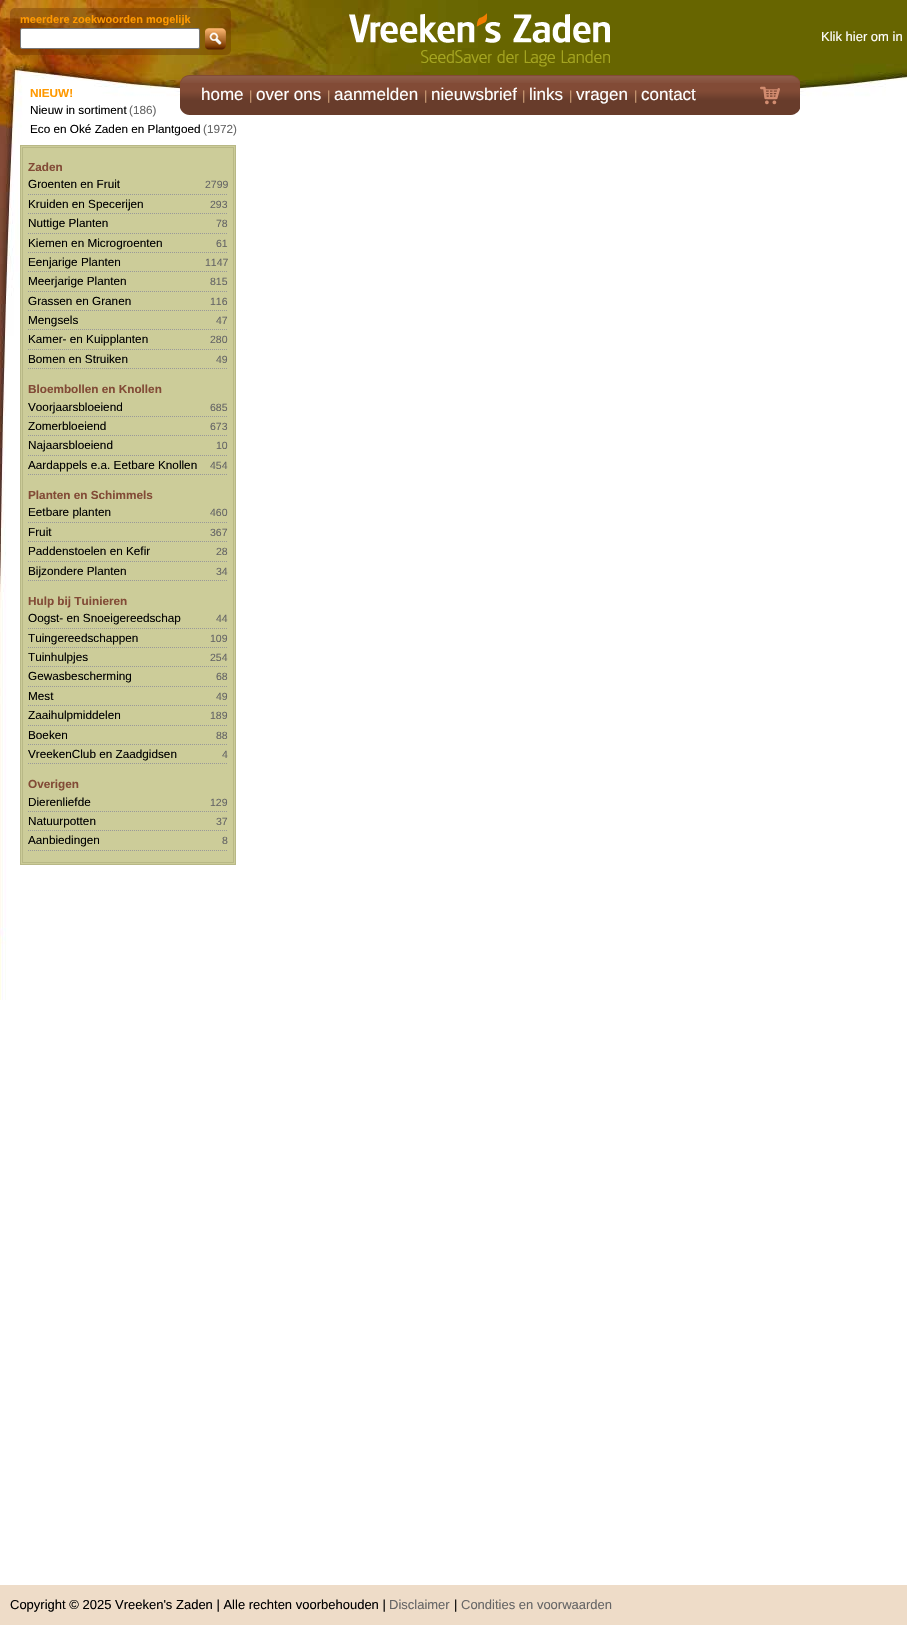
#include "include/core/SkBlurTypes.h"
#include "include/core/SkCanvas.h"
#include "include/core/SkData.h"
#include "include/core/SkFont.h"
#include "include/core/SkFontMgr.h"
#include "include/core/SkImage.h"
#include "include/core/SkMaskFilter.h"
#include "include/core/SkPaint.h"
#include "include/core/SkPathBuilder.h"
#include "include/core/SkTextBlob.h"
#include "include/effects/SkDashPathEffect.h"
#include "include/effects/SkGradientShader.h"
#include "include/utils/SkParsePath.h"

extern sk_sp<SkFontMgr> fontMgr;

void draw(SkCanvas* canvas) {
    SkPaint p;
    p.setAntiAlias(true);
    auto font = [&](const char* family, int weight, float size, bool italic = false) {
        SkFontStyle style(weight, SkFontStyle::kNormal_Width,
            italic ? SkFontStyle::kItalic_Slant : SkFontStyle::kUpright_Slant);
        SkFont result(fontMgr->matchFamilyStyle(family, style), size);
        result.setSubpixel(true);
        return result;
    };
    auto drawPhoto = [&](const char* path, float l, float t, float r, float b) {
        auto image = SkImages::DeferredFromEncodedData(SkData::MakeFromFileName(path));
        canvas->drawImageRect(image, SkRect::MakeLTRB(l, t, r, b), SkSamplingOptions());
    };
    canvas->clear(0xFFFFFFFF);
    drawPhoto("media/1.png", 0, 0, 907, 1000);
    p.setColor(0x66663300);
    canvas->drawRoundRect(SkRect::MakeLTRB(10, 8, 231, 55), 5, 5, p);
    auto font1 = font("Liberation Sans", 700, 11);
    p.setColor(0xFFFF9900);
    canvas->drawString("meerdere zoekwoorden mogelijk", 20, 23, font1, p);
    p.setColor(0xFFFFFFFF);
    canvas->drawRoundRect(SkRect::MakeLTRB(20.5f, 28.5f, 199.5f, 48.5f), 1.5f, 1.5f, p);
    p.setStyle(SkPaint::kStroke_Style);
    p.setStrokeWidth(1);
    p.setColor(0xFF767676);
    canvas->drawRoundRect(SkRect::MakeLTRB(20.5f, 28.5f, 199.5f, 48.5f), 1.5f, 1.5f, p);
    drawPhoto("media/2.png", 205, 28, 226, 50);
    drawPhoto("media/3.png", 349, 13, 610, 67);
    auto font2 = font("Liberation Sans", 400, 13);
    p.setStyle(SkPaint::kFill_Style);
    p.setColor(0xFFFFFFFF);
    canvas->drawString("Klik hier om in", 821, 41, font2, p);
    auto font3 = font("Liberation Sans", 700, 11.75f);
    p.setColor(0xFFFF9900);
    canvas->drawString("NIEUW!", 30, 97, font3, p);
    auto font4 = font("Liberation Sans", 400, 11.75f);
    p.setColor(0xFF000000);
    canvas->drawString("Nieuw in sortiment", 30, 114, font4, p);
    p.setColor(0xFF666666);
    canvas->drawString("(186)", 129, 114, font4, p);
    p.setColor(0xFF000000);
    canvas->drawString("Eco en Oké Zaden en Plantgoed", 30, 133, font4, p);
    p.setColor(0xFF666666);
    canvas->drawString("(1972)", 203, 133, font4, p);
    p.setColor(0xFFCCCC99);
    canvas->drawRect(SkRect::MakeLTRB(20.5f, 145.5f, 235.5f, 864.5f), p);
    p.setStyle(SkPaint::kStroke_Style);
    p.setColor(0xFFB8B886);
    canvas->drawRect(SkRect::MakeLTRB(20.5f, 145.5f, 235.5f, 864.5f), p);
    canvas->drawRect(SkRect::MakeLTRB(22.5f, 147.5f, 233.5f, 862.5f), p);
    p.setStyle(SkPaint::kFill_Style);
    p.setColor(0xFF824B36);
    canvas->drawString("Zaden", 28, 171, font3, p);
    p.setStyle(SkPaint::kStroke_Style);
    p.setColor(0xFF999999);
    p.setPathEffect(SkDashPathEffect::Make({{1, 1}}, 0));
    canvas->drawPath(SkPathBuilder().moveTo(28, 194.5f).lineTo(228, 194.5f).detach(), p);
    p.setPathEffect(nullptr);
    p.setStyle(SkPaint::kFill_Style);
    p.setColor(0xFF000000);
    canvas->drawString("Groenten en Fruit", 28, 188, font4, p);
    auto font5 = font("Liberation Sans", 400, 10.5f);
    p.setColor(0xFF666666);
    canvas->drawString("2799", 205, 188, font5, p);
    p.setStyle(SkPaint::kStroke_Style);
    p.setColor(0xFF999999);
    p.setPathEffect(SkDashPathEffect::Make({{1, 1}}, 0));
    canvas->drawPath(SkPathBuilder().moveTo(28, 213.5f).lineTo(228, 213.5f).detach(), p);
    p.setPathEffect(nullptr);
    p.setStyle(SkPaint::kFill_Style);
    p.setColor(0xFF000000);
    canvas->drawString("Kruiden en Specerijen", 28, 208, font4, p);
    p.setColor(0xFF666666);
    canvas->drawString("293", 210, 208, font5, p);
    p.setStyle(SkPaint::kStroke_Style);
    p.setColor(0xFF999999);
    p.setPathEffect(SkDashPathEffect::Make({{1, 1}}, 0));
    canvas->drawPath(SkPathBuilder().moveTo(28, 233.5f).lineTo(228, 233.5f).detach(), p);
    p.setPathEffect(nullptr);
    p.setStyle(SkPaint::kFill_Style);
    p.setColor(0xFF000000);
    canvas->drawString("Nuttige Planten", 28, 227, font4, p);
    p.setColor(0xFF666666);
    canvas->drawString("78", 216, 227, font5, p);
    p.setStyle(SkPaint::kStroke_Style);
    p.setColor(0xFF999999);
    p.setPathEffect(SkDashPathEffect::Make({{1, 1}}, 0));
    canvas->drawPath(SkPathBuilder().moveTo(28, 252.5f).lineTo(228, 252.5f).detach(), p);
    p.setPathEffect(nullptr);
    p.setStyle(SkPaint::kFill_Style);
    p.setColor(0xFF000000);
    canvas->drawString("Kiemen en Microgroenten", 28, 247, font4, p);
    p.setColor(0xFF666666);
    canvas->drawString("61", 216, 247, font5, p);
    p.setStyle(SkPaint::kStroke_Style);
    p.setColor(0xFF999999);
    p.setPathEffect(SkDashPathEffect::Make({{1, 1}}, 0));
    canvas->drawPath(SkPathBuilder().moveTo(28, 271.5f).lineTo(228, 271.5f).detach(), p);
    p.setPathEffect(nullptr);
    p.setStyle(SkPaint::kFill_Style);
    p.setColor(0xFF000000);
    canvas->drawString("Eenjarige Planten", 28, 266, font4, p);
    p.setColor(0xFF666666);
    canvas->drawString("1147", 205, 266, font5, p);
    p.setStyle(SkPaint::kStroke_Style);
    p.setColor(0xFF999999);
    p.setPathEffect(SkDashPathEffect::Make({{1, 1}}, 0));
    canvas->drawPath(SkPathBuilder().moveTo(28, 291.5f).lineTo(228, 291.5f).detach(), p);
    p.setPathEffect(nullptr);
    p.setStyle(SkPaint::kFill_Style);
    p.setColor(0xFF000000);
    canvas->drawString("Meerjarige Planten", 28, 285, font4, p);
    p.setColor(0xFF666666);
    canvas->drawString("815", 210, 285, font5, p);
    p.setStyle(SkPaint::kStroke_Style);
    p.setColor(0xFF999999);
    p.setPathEffect(SkDashPathEffect::Make({{1, 1}}, 0));
    canvas->drawPath(SkPathBuilder().moveTo(28, 310.5f).lineTo(228, 310.5f).detach(), p);
    p.setPathEffect(nullptr);
    p.setStyle(SkPaint::kFill_Style);
    p.setColor(0xFF000000);
    canvas->drawString("Grassen en Granen", 28, 305, font4, p);
    p.setColor(0xFF666666);
    canvas->drawString("116", 210, 305, font5, p);
    p.setStyle(SkPaint::kStroke_Style);
    p.setColor(0xFF999999);
    p.setPathEffect(SkDashPathEffect::Make({{1, 1}}, 0));
    canvas->drawPath(SkPathBuilder().moveTo(28, 329.5f).lineTo(228, 329.5f).detach(), p);
    p.setPathEffect(nullptr);
    p.setStyle(SkPaint::kFill_Style);
    p.setColor(0xFF000000);
    canvas->drawString("Mengsels", 28, 324, font4, p);
    p.setColor(0xFF666666);
    canvas->drawString("47", 216, 324, font5, p);
    p.setStyle(SkPaint::kStroke_Style);
    p.setColor(0xFF999999);
    p.setPathEffect(SkDashPathEffect::Make({{1, 1}}, 0));
    canvas->drawPath(SkPathBuilder().moveTo(28, 349.5f).lineTo(228, 349.5f).detach(), p);
    p.setPathEffect(nullptr);
    p.setStyle(SkPaint::kFill_Style);
    p.setColor(0xFF000000);
    canvas->drawString("Kamer- en Kuipplanten", 28, 343, font4, p);
    p.setColor(0xFF666666);
    canvas->drawString("280", 210, 343, font5, p);
    p.setStyle(SkPaint::kStroke_Style);
    p.setColor(0xFF999999);
    p.setPathEffect(SkDashPathEffect::Make({{1, 1}}, 0));
    canvas->drawPath(SkPathBuilder().moveTo(28, 368.5f).lineTo(228, 368.5f).detach(), p);
    p.setPathEffect(nullptr);
    p.setStyle(SkPaint::kFill_Style);
    p.setColor(0xFF000000);
    canvas->drawString("Bomen en Struiken", 28, 363, font4, p);
    p.setColor(0xFF666666);
    canvas->drawString("49", 216, 363, font5, p);
    p.setColor(0xFF824B36);
    canvas->drawString("Bloembollen en Knollen", 28, 393, font3, p);
    p.setStyle(SkPaint::kStroke_Style);
    p.setColor(0xFF999999);
    p.setPathEffect(SkDashPathEffect::Make({{1, 1}}, 0));
    canvas->drawPath(SkPathBuilder().moveTo(28, 416.5f).lineTo(228, 416.5f).detach(), p);
    p.setPathEffect(nullptr);
    p.setStyle(SkPaint::kFill_Style);
    p.setColor(0xFF000000);
    canvas->drawString("Voorjaarsbloeiend", 28, 411, font4, p);
    p.setColor(0xFF666666);
    canvas->drawString("685", 210, 411, font5, p);
    p.setStyle(SkPaint::kStroke_Style);
    p.setColor(0xFF999999);
    p.setPathEffect(SkDashPathEffect::Make({{1, 1}}, 0));
    canvas->drawPath(SkPathBuilder().moveTo(28, 435.5f).lineTo(228, 435.5f).detach(), p);
    p.setPathEffect(nullptr);
    p.setStyle(SkPaint::kFill_Style);
    p.setColor(0xFF000000);
    canvas->drawString("Zomerbloeiend", 28, 430, font4, p);
    p.setColor(0xFF666666);
    canvas->drawString("673", 210, 430, font5, p);
    p.setStyle(SkPaint::kStroke_Style);
    p.setColor(0xFF999999);
    p.setPathEffect(SkDashPathEffect::Make({{1, 1}}, 0));
    canvas->drawPath(SkPathBuilder().moveTo(28, 455.5f).lineTo(228, 455.5f).detach(), p);
    p.setPathEffect(nullptr);
    p.setStyle(SkPaint::kFill_Style);
    p.setColor(0xFF000000);
    canvas->drawString("Najaarsbloeiend", 28, 449, font4, p);
    p.setColor(0xFF666666);
    canvas->drawString("10", 216, 449, font5, p);
    p.setStyle(SkPaint::kStroke_Style);
    p.setColor(0xFF999999);
    p.setPathEffect(SkDashPathEffect::Make({{1, 1}}, 0));
    canvas->drawPath(SkPathBuilder().moveTo(28, 474.5f).lineTo(228, 474.5f).detach(), p);
    p.setPathEffect(nullptr);
    p.setStyle(SkPaint::kFill_Style);
    p.setColor(0xFF000000);
    canvas->drawString("Aardappels e.a. Eetbare Knollen", 28, 469, font4, p);
    p.setColor(0xFF666666);
    canvas->drawString("454", 210, 469, font5, p);
    p.setColor(0xFF824B36);
    canvas->drawString("Planten en Schimmels", 28, 499, font3, p);
    p.setStyle(SkPaint::kStroke_Style);
    p.setColor(0xFF999999);
    p.setPathEffect(SkDashPathEffect::Make({{1, 1}}, 0));
    canvas->drawPath(SkPathBuilder().moveTo(28, 522.5f).lineTo(228, 522.5f).detach(), p);
    p.setPathEffect(nullptr);
    p.setStyle(SkPaint::kFill_Style);
    p.setColor(0xFF000000);
    canvas->drawString("Eetbare planten", 28, 516, font4, p);
    p.setColor(0xFF666666);
    canvas->drawString("460", 210, 516, font5, p);
    p.setStyle(SkPaint::kStroke_Style);
    p.setColor(0xFF999999);
    p.setPathEffect(SkDashPathEffect::Make({{1, 1}}, 0));
    canvas->drawPath(SkPathBuilder().moveTo(28, 541.5f).lineTo(228, 541.5f).detach(), p);
    p.setPathEffect(nullptr);
    p.setStyle(SkPaint::kFill_Style);
    p.setColor(0xFF000000);
    canvas->drawString("Fruit", 28, 536, font4, p);
    p.setColor(0xFF666666);
    canvas->drawString("367", 210, 536, font5, p);
    p.setStyle(SkPaint::kStroke_Style);
    p.setColor(0xFF999999);
    p.setPathEffect(SkDashPathEffect::Make({{1, 1}}, 0));
    canvas->drawPath(SkPathBuilder().moveTo(28, 561.5f).lineTo(228, 561.5f).detach(), p);
    p.setPathEffect(nullptr);
    p.setStyle(SkPaint::kFill_Style);
    p.setColor(0xFF000000);
    canvas->drawString("Paddenstoelen en Kefir", 28, 555, font4, p);
    p.setColor(0xFF666666);
    canvas->drawString("28", 216, 555, font5, p);
    p.setStyle(SkPaint::kStroke_Style);
    p.setColor(0xFF999999);
    p.setPathEffect(SkDashPathEffect::Make({{1, 1}}, 0));
    canvas->drawPath(SkPathBuilder().moveTo(28, 580.5f).lineTo(228, 580.5f).detach(), p);
    p.setPathEffect(nullptr);
    p.setStyle(SkPaint::kFill_Style);
    p.setColor(0xFF000000);
    canvas->drawString("Bijzondere Planten", 28, 575, font4, p);
    p.setColor(0xFF666666);
    canvas->drawString("34", 216, 575, font5, p);
    p.setColor(0xFF824B36);
    canvas->drawString("Hulp bij Tuinieren", 28, 605, font3, p);
    p.setStyle(SkPaint::kStroke_Style);
    p.setColor(0xFF999999);
    p.setPathEffect(SkDashPathEffect::Make({{1, 1}}, 0));
    canvas->drawPath(SkPathBuilder().moveTo(28, 628.5f).lineTo(228, 628.5f).detach(), p);
    p.setPathEffect(nullptr);
    p.setStyle(SkPaint::kFill_Style);
    p.setColor(0xFF000000);
    canvas->drawString("Oogst- en Snoeigereedschap", 28, 622, font4, p);
    p.setColor(0xFF666666);
    canvas->drawString("44", 216, 622, font5, p);
    p.setStyle(SkPaint::kStroke_Style);
    p.setColor(0xFF999999);
    p.setPathEffect(SkDashPathEffect::Make({{1, 1}}, 0));
    canvas->drawPath(SkPathBuilder().moveTo(28, 647.5f).lineTo(228, 647.5f).detach(), p);
    p.setPathEffect(nullptr);
    p.setStyle(SkPaint::kFill_Style);
    p.setColor(0xFF000000);
    canvas->drawString("Tuingereedschappen", 28, 642, font4, p);
    p.setColor(0xFF666666);
    canvas->drawString("109", 210, 642, font5, p);
    p.setStyle(SkPaint::kStroke_Style);
    p.setColor(0xFF999999);
    p.setPathEffect(SkDashPathEffect::Make({{1, 1}}, 0));
    canvas->drawPath(SkPathBuilder().moveTo(28, 666.5f).lineTo(228, 666.5f).detach(), p);
    p.setPathEffect(nullptr);
    p.setStyle(SkPaint::kFill_Style);
    p.setColor(0xFF000000);
    canvas->drawString("Tuinhulpjes", 28, 661, font4, p);
    p.setColor(0xFF666666);
    canvas->drawString("254", 210, 661, font5, p);
    p.setStyle(SkPaint::kStroke_Style);
    p.setColor(0xFF999999);
    p.setPathEffect(SkDashPathEffect::Make({{1, 1}}, 0));
    canvas->drawPath(SkPathBuilder().moveTo(28, 686.5f).lineTo(228, 686.5f).detach(), p);
    p.setPathEffect(nullptr);
    p.setStyle(SkPaint::kFill_Style);
    p.setColor(0xFF000000);
    canvas->drawString("Gewasbescherming", 28, 680, font4, p);
    p.setColor(0xFF666666);
    canvas->drawString("68", 216, 680, font5, p);
    p.setStyle(SkPaint::kStroke_Style);
    p.setColor(0xFF999999);
    p.setPathEffect(SkDashPathEffect::Make({{1, 1}}, 0));
    canvas->drawPath(SkPathBuilder().moveTo(28, 705.5f).lineTo(228, 705.5f).detach(), p);
    p.setPathEffect(nullptr);
    p.setStyle(SkPaint::kFill_Style);
    p.setColor(0xFF000000);
    canvas->drawString("Mest", 28, 700, font4, p);
    p.setColor(0xFF666666);
    canvas->drawString("49", 216, 700, font5, p);
    p.setStyle(SkPaint::kStroke_Style);
    p.setColor(0xFF999999);
    p.setPathEffect(SkDashPathEffect::Make({{1, 1}}, 0));
    canvas->drawPath(SkPathBuilder().moveTo(28, 725.5f).lineTo(228, 725.5f).detach(), p);
    p.setPathEffect(nullptr);
    p.setStyle(SkPaint::kFill_Style);
    p.setColor(0xFF000000);
    canvas->drawString("Zaaihulpmiddelen", 28, 719, font4, p);
    p.setColor(0xFF666666);
    canvas->drawString("189", 210, 719, font5, p);
    p.setStyle(SkPaint::kStroke_Style);
    p.setColor(0xFF999999);
    p.setPathEffect(SkDashPathEffect::Make({{1, 1}}, 0));
    canvas->drawPath(SkPathBuilder().moveTo(28, 744.5f).lineTo(228, 744.5f).detach(), p);
    p.setPathEffect(nullptr);
    p.setStyle(SkPaint::kFill_Style);
    p.setColor(0xFF000000);
    canvas->drawString("Boeken", 28, 739, font4, p);
    p.setColor(0xFF666666);
    canvas->drawString("88", 216, 739, font5, p);
    p.setStyle(SkPaint::kStroke_Style);
    p.setColor(0xFF999999);
    p.setPathEffect(SkDashPathEffect::Make({{1, 1}}, 0));
    canvas->drawPath(SkPathBuilder().moveTo(28, 763.5f).lineTo(228, 763.5f).detach(), p);
    p.setPathEffect(nullptr);
    p.setStyle(SkPaint::kFill_Style);
    p.setColor(0xFF000000);
    canvas->drawString("VreekenClub en Zaadgidsen", 28, 758, font4, p);
    p.setColor(0xFF666666);
    canvas->drawString("4", 222, 758, font5, p);
    p.setColor(0xFF824B36);
    canvas->drawString("Overigen", 28, 788, font3, p);
    p.setStyle(SkPaint::kStroke_Style);
    p.setColor(0xFF999999);
    p.setPathEffect(SkDashPathEffect::Make({{1, 1}}, 0));
    canvas->drawPath(SkPathBuilder().moveTo(28, 811.5f).lineTo(228, 811.5f).detach(), p);
    p.setPathEffect(nullptr);
    p.setStyle(SkPaint::kFill_Style);
    p.setColor(0xFF000000);
    canvas->drawString("Dierenliefde", 28, 806, font4, p);
    p.setColor(0xFF666666);
    canvas->drawString("129", 210, 806, font5, p);
    p.setStyle(SkPaint::kStroke_Style);
    p.setColor(0xFF999999);
    p.setPathEffect(SkDashPathEffect::Make({{1, 1}}, 0));
    canvas->drawPath(SkPathBuilder().moveTo(28, 830.5f).lineTo(228, 830.5f).detach(), p);
    p.setPathEffect(nullptr);
    p.setStyle(SkPaint::kFill_Style);
    p.setColor(0xFF000000);
    canvas->drawString("Natuurpotten", 28, 825, font4, p);
    p.setColor(0xFF666666);
    canvas->drawString("37", 216, 825, font5, p);
    p.setStyle(SkPaint::kStroke_Style);
    p.setColor(0xFF999999);
    p.setPathEffect(SkDashPathEffect::Make({{1, 1}}, 0));
    canvas->drawPath(SkPathBuilder().moveTo(28, 850.5f).lineTo(228, 850.5f).detach(), p);
    p.setPathEffect(nullptr);
    p.setStyle(SkPaint::kFill_Style);
    p.setColor(0xFF000000);
    canvas->drawString("Aanbiedingen", 28, 844, font4, p);
    p.setColor(0xFF666666);
    canvas->drawString("8", 222, 844, font5, p);
    drawPhoto("media/4.png", 180, 75, 800, 115);
    auto font6 = font("Liberation Sans", 400, 17);
    p.setColor(0xFFFFFFFF);
    canvas->drawString("home", 201, 100, font6, p);
    p.setColor(0xFFCB9C75);
    canvas->drawString("|", 249, 100, font2, p);
    p.setColor(0xFFFFFFFF);
    canvas->drawString("over ons", 256, 100, font6, p);
    p.setColor(0xFFCB9C75);
    canvas->drawString("|", 327, 100, font2, p);
    p.setColor(0xFFFFFFFF);
    canvas->drawString("aanmelden", 334, 100, font6, p);
    p.setColor(0xFFCB9C75);
    canvas->drawString("|", 424, 100, font2, p);
    p.setColor(0xFFFFFFFF);
    canvas->drawString("nieuwsbrief", 431, 100, font6, p);
    p.setColor(0xFFCB9C75);
    canvas->drawString("|", 522, 100, font2, p);
    p.setColor(0xFFFFFFFF);
    canvas->drawString("links", 529, 100, font6, p);
    p.setColor(0xFFCB9C75);
    canvas->drawString("|", 569, 100, font2, p);
    p.setColor(0xFFFFFFFF);
    canvas->drawString("vragen", 576, 100, font6, p);
    p.setColor(0xFFCB9C75);
    canvas->drawString("|", 634, 100, font2, p);
    p.setColor(0xFFFFFFFF);
    canvas->drawString("contact", 641, 100, font6, p);
    drawPhoto("media/5.png", 760, 86, 780, 105);
    p.setColor(0xFFEEDCC8);
    canvas->drawRect(SkRect::MakeLTRB(0, 1585, 907, 1625), p);
    p.setColor(0xFF000000);
    canvas->drawString("Copyright © 2025 Vreeken's Zaden | Alle rechten voorbehouden |", 10, 1609, font2, p);
    p.setColor(0xFF666666);
    canvas->drawString("Disclaimer", 389, 1609, font2, p);
    p.setColor(0xFF000000);
    canvas->drawString("|", 454, 1609, font2, p);
    p.setColor(0xFF666666);
    canvas->drawString("Condities en voorwaarden", 461, 1609, font2, p);
}
